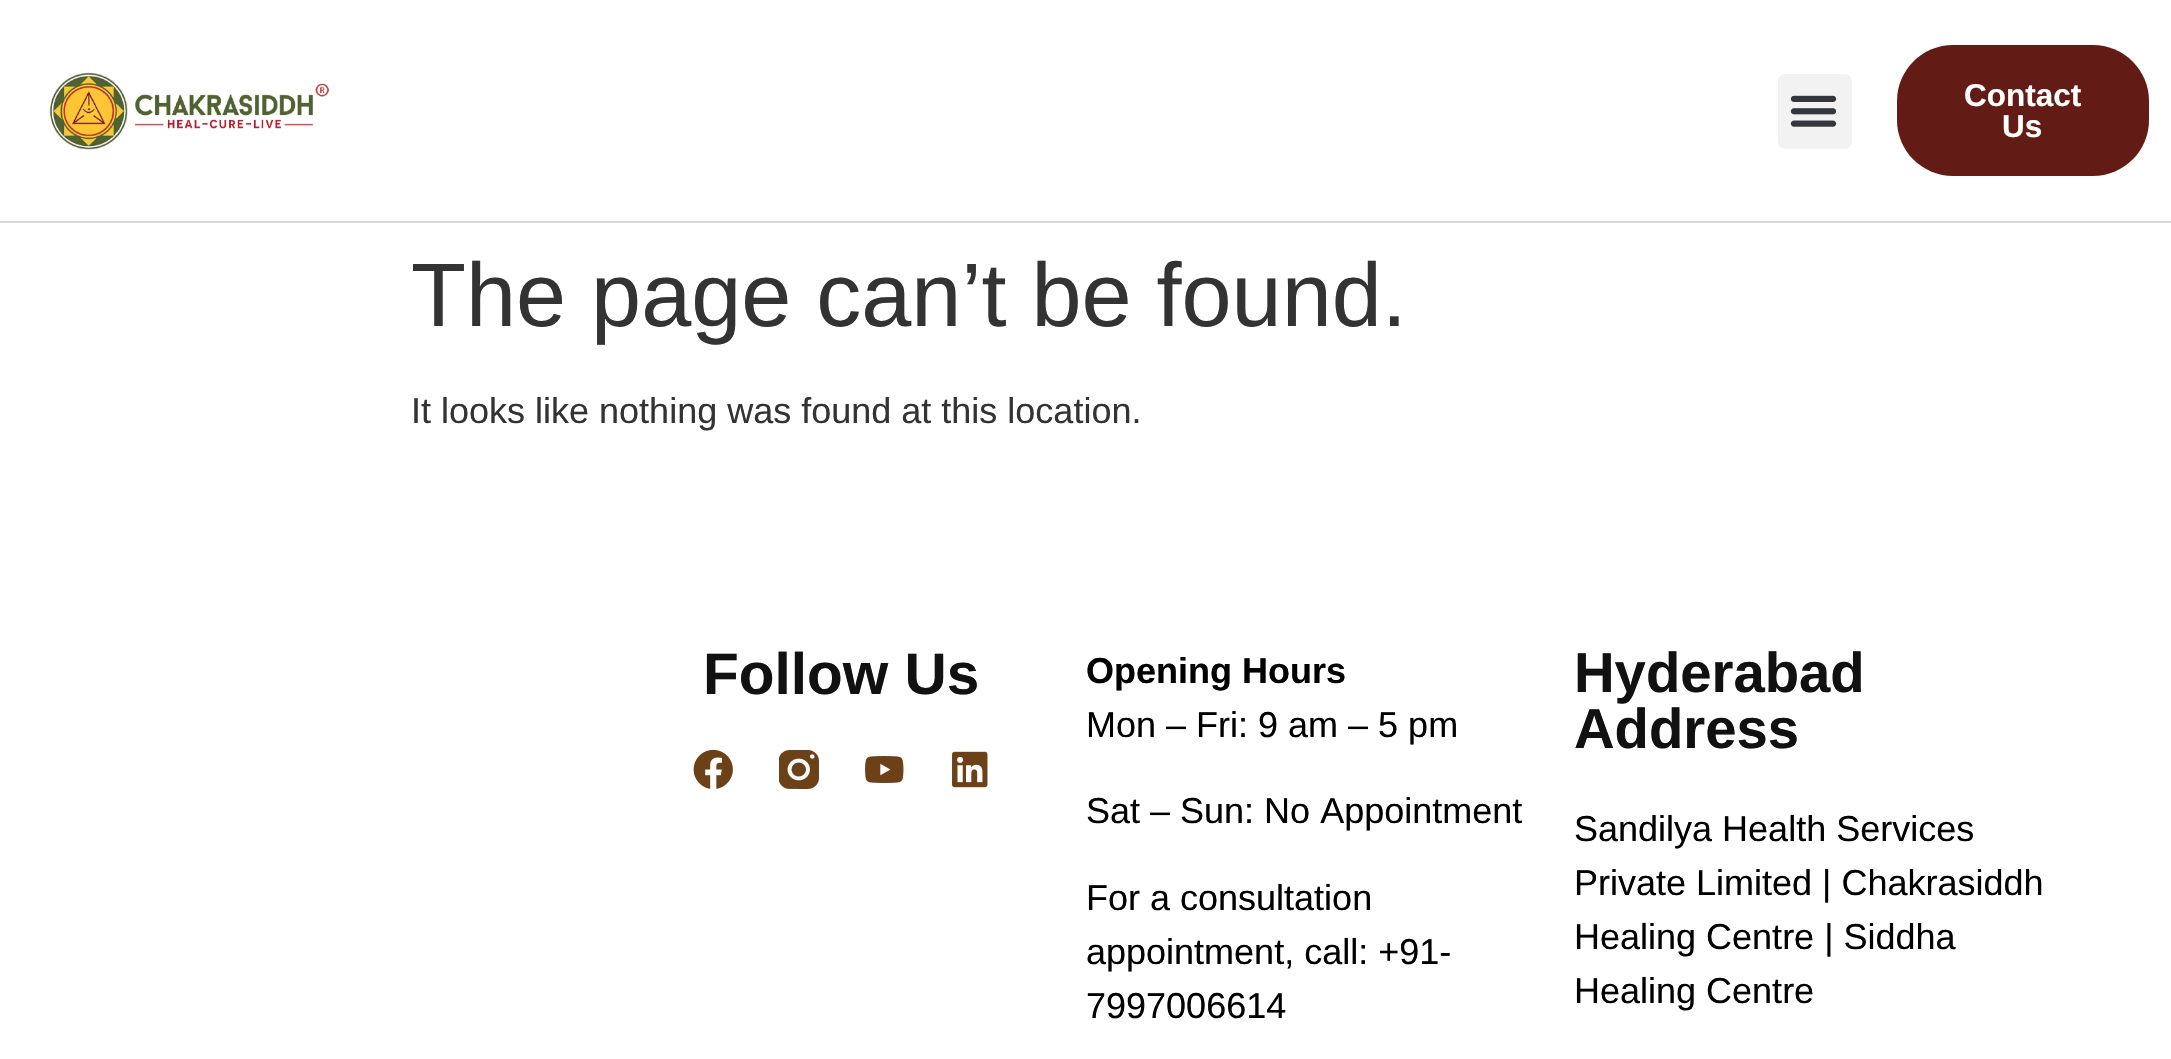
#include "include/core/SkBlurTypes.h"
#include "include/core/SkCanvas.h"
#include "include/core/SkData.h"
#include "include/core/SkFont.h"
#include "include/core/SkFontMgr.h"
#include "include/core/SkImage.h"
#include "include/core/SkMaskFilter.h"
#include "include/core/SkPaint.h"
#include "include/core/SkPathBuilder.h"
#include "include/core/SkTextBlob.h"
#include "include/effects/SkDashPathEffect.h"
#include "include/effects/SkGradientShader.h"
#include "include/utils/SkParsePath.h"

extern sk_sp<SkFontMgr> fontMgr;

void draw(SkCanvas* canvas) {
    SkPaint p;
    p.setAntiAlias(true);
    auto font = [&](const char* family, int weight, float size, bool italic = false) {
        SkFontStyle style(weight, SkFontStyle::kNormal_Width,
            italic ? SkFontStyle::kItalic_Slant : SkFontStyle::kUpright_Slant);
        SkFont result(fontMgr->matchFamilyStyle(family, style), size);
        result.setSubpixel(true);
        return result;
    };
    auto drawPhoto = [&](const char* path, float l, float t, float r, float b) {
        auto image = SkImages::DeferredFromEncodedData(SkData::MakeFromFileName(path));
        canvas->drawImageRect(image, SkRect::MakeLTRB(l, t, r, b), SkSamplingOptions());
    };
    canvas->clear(0xFFFFFFFF);
    p.setColor(0xFFD9D7D7);
    canvas->drawRect(SkRect::MakeLTRB(0, 221, 2171, 223), p);
    drawPhoto("media/1.png", 49, 72, 329, 150);
    p.setColor(0xFFF2F2F2);
    canvas->drawRoundRect(SkRect::MakeLTRB(1778, 74, 1852, 149), 7, 7, p);
    drawPhoto("media/2.png", 1790, 95, 1837, 127);
    p.setColor(0xFF621B15);
    canvas->drawRoundRect(SkRect::MakeLTRB(1897, 45, 2149, 176), 56, 56, p);
    auto font1 = font("Liberation Sans", 700, 31.5f);
    p.setColor(0xFFFFFFFF);
    canvas->drawString("Contact", 1964, 106, font1, p);
    canvas->drawString("Us", 2002, 137, font1, p);
    auto font2 = font("Liberation Sans", 400, 90);
    p.setColor(0xFF333333);
    canvas->drawString("The page can’t be found.", 411, 326, font2, p);
    auto font3 = font("Liberation Sans", 400, 36);
    canvas->drawString("It looks like nothing was found at this location.", 411, 423, font3, p);
    auto font4 = font("Liberation Sans", 700, 58.5f);
    p.setColor(0xFF111111);
    canvas->drawString("Follow Us", 703, 694, font4, p);
    drawPhoto("media/3.png", 693, 749, 733, 789);
    drawPhoto("media/4.png", 779, 750, 819, 789);
    drawPhoto("media/5.png", 865, 756, 904, 783);
    drawPhoto("media/6.png", 952, 751, 988, 788);
    auto font5 = font("Liberation Sans", 700, 36);
    p.setColor(0xFF000000);
    canvas->drawString("Opening Hours", 1086, 683, font5, p);
    {
        const struct { const char* s; float x, y; } items[] = {
            {"Mon – Fri: 9 am – 5 pm", 1086, 737},
            {"Sat – Sun: No Appointment", 1086, 823},
            {"For a consultation", 1086, 910},
            {"appointment, call: +91-", 1086, 964},
            {"7997006614", 1086, 1018},
        };
        for (auto [s, x, y] : items) {
            canvas->drawString(s, x, y, font3, p);
        }
    }
    auto font6 = font("Liberation Sans", 700, 56.25f);
    p.setColor(0xFF111111);
    canvas->drawString("Hyderabad", 1574, 692, font6, p);
    canvas->drawString("Address", 1574, 748, font6, p);
    p.setColor(0xFF000000);
    {
        const struct { const char* s; float x, y; } items[] = {
            {"Sandilya Health Services", 1574, 841},
            {"Private Limited | Chakrasiddh", 1574, 895},
            {"Healing Centre | Siddha", 1574, 949},
            {"Healing Centre", 1574, 1003},
        };
        for (auto [s, x, y] : items) {
            canvas->drawString(s, x, y, font3, p);
        }
    }
}
